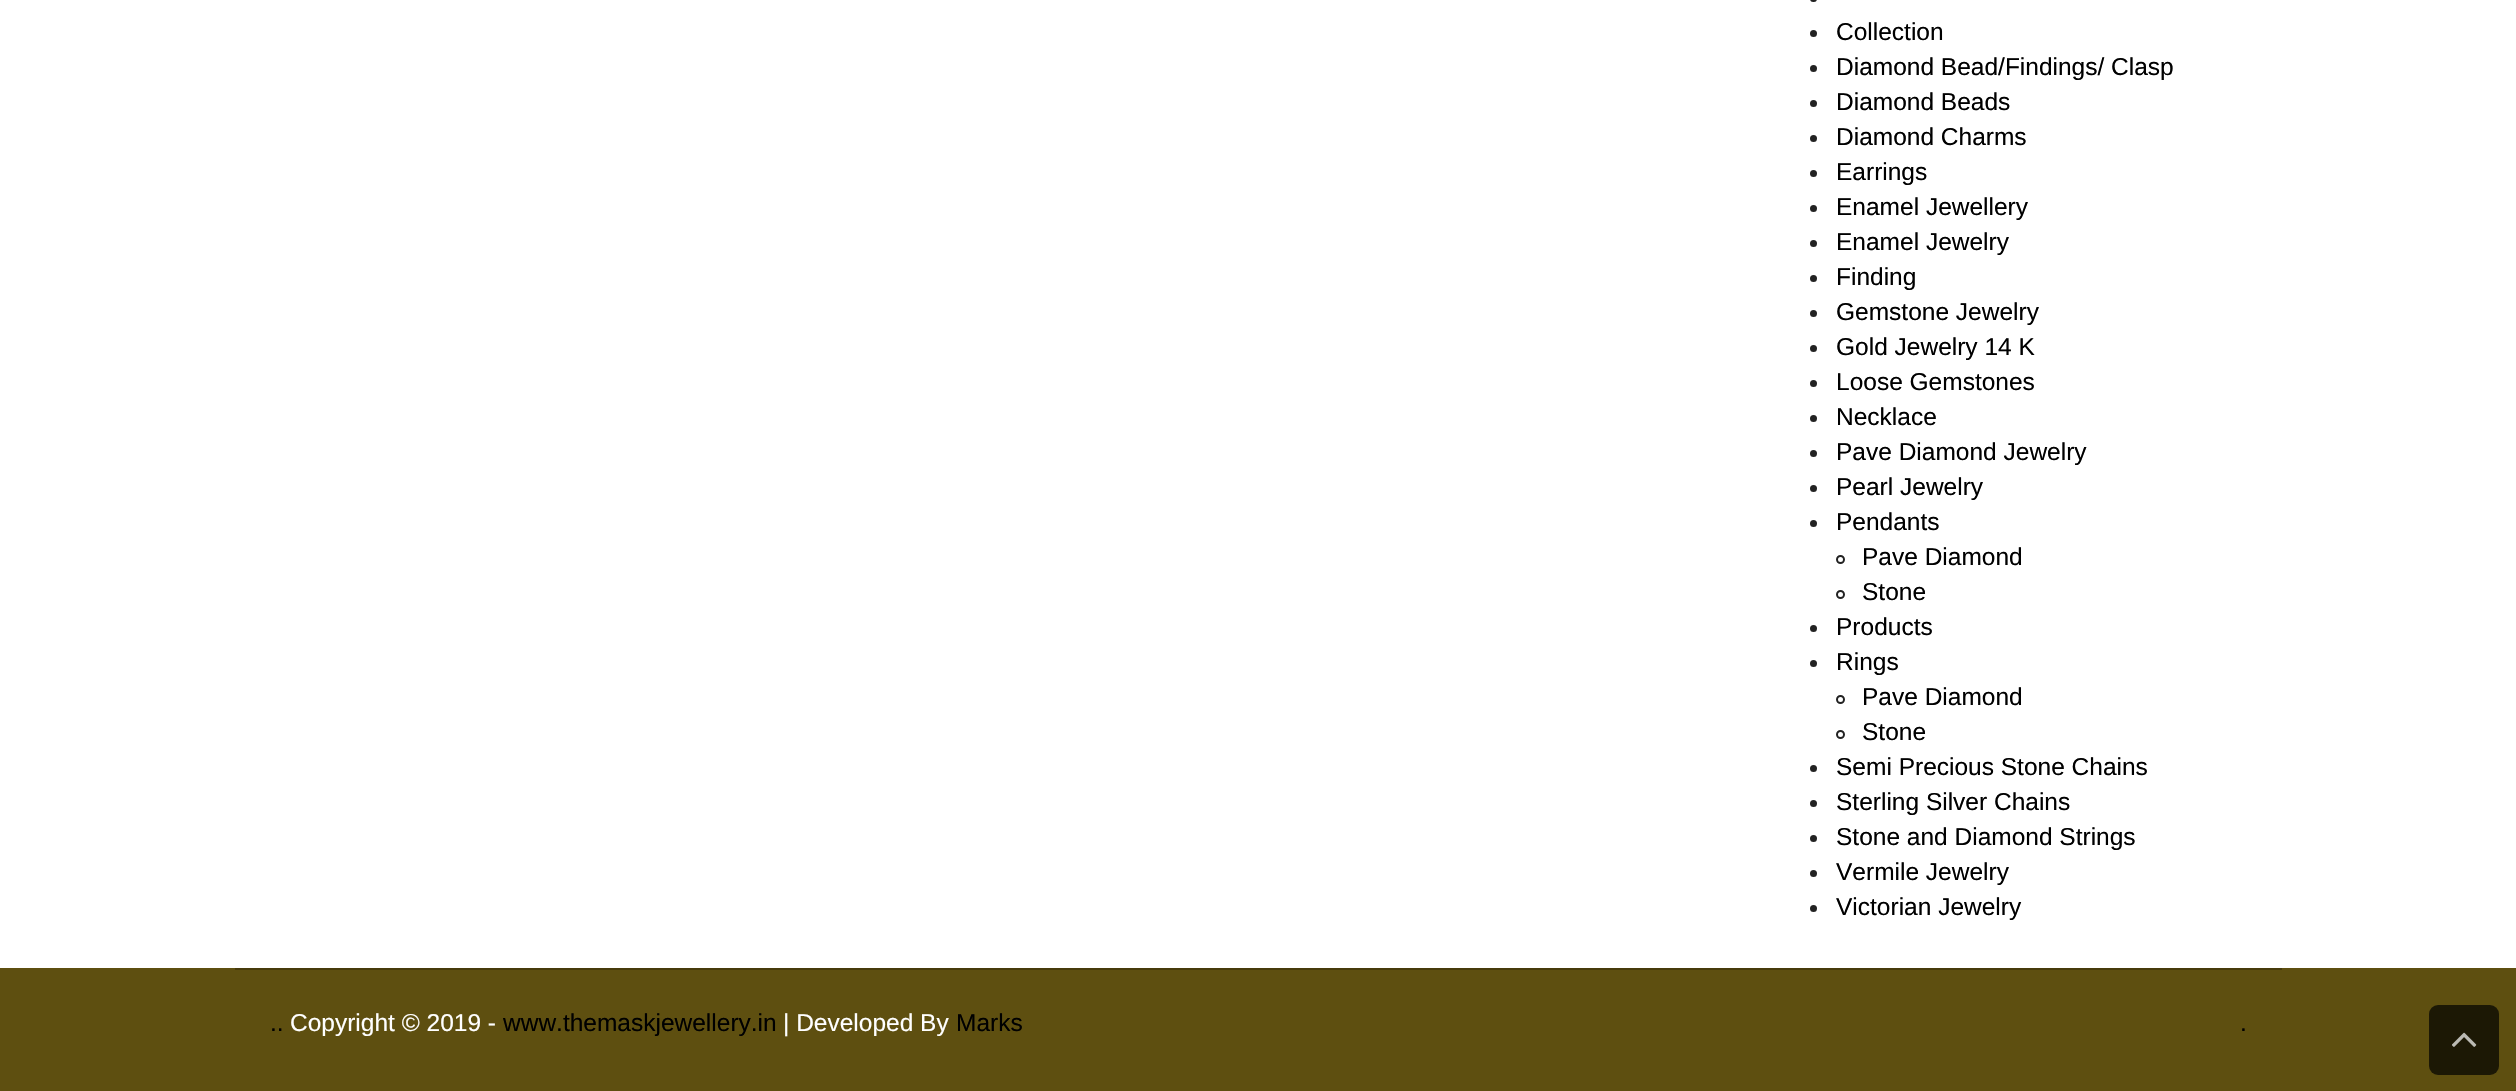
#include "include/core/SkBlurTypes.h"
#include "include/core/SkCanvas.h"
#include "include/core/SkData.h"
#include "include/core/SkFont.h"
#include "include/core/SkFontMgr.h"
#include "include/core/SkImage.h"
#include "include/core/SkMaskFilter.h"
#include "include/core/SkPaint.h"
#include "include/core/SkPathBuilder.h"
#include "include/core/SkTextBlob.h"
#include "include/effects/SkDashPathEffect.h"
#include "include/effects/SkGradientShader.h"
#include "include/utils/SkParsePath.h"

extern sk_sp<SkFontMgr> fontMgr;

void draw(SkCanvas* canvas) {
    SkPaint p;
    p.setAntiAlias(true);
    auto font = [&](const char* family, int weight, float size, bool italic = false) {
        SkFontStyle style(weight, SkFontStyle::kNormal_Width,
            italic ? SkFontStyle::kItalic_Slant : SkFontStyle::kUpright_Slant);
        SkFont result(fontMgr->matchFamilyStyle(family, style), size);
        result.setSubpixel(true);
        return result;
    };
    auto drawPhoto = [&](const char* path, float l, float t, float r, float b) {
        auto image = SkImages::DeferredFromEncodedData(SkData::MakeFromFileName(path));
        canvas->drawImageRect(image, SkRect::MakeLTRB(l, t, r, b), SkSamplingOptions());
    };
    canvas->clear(0xFFFFFFFF);
    p.setColor(0xFF222222);
    canvas->drawRoundRect(SkRect::MakeLTRB(1810, -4, 1817, 2), 3.5f, 3.5f, p);
    canvas->drawCircle(1813.5f, 33.5f, 3.5f, p);
    auto font1 = font("Liberation Sans", 400, 24.5f);
    p.setColor(0xFF000000);
    canvas->drawString("Collection", 1836, 40, font1, p);
    p.setColor(0xFF222222);
    canvas->drawCircle(1813.5f, 68.5f, 3.5f, p);
    p.setColor(0xFF000000);
    canvas->drawString("Diamond Bead/Findings/ Clasp", 1836, 75, font1, p);
    p.setColor(0xFF222222);
    canvas->drawCircle(1813.5f, 103.5f, 3.5f, p);
    p.setColor(0xFF000000);
    canvas->drawString("Diamond Beads", 1836, 110, font1, p);
    p.setColor(0xFF222222);
    canvas->drawCircle(1813.5f, 138.5f, 3.5f, p);
    p.setColor(0xFF000000);
    canvas->drawString("Diamond Charms", 1836, 145, font1, p);
    p.setColor(0xFF222222);
    canvas->drawCircle(1813.5f, 173.5f, 3.5f, p);
    p.setColor(0xFF000000);
    canvas->drawString("Earrings", 1836, 180, font1, p);
    p.setColor(0xFF222222);
    canvas->drawCircle(1813.5f, 208.5f, 3.5f, p);
    p.setColor(0xFF000000);
    canvas->drawString("Enamel Jewellery", 1836, 215, font1, p);
    p.setColor(0xFF222222);
    canvas->drawCircle(1813.5f, 243.5f, 3.5f, p);
    p.setColor(0xFF000000);
    canvas->drawString("Enamel Jewelry", 1836, 250, font1, p);
    p.setColor(0xFF222222);
    canvas->drawCircle(1813.5f, 278.5f, 3.5f, p);
    p.setColor(0xFF000000);
    canvas->drawString("Finding", 1836, 285, font1, p);
    p.setColor(0xFF222222);
    canvas->drawCircle(1813.5f, 313.5f, 3.5f, p);
    p.setColor(0xFF000000);
    canvas->drawString("Gemstone Jewelry", 1836, 320, font1, p);
    p.setColor(0xFF222222);
    canvas->drawCircle(1813.5f, 348.5f, 3.5f, p);
    p.setColor(0xFF000000);
    canvas->drawString("Gold Jewelry 14 K", 1836, 355, font1, p);
    p.setColor(0xFF222222);
    canvas->drawCircle(1813.5f, 383.5f, 3.5f, p);
    p.setColor(0xFF000000);
    canvas->drawString("Loose Gemstones", 1836, 390, font1, p);
    p.setColor(0xFF222222);
    canvas->drawCircle(1813.5f, 418.5f, 3.5f, p);
    p.setColor(0xFF000000);
    canvas->drawString("Necklace", 1836, 425, font1, p);
    p.setColor(0xFF222222);
    canvas->drawCircle(1813.5f, 453.5f, 3.5f, p);
    p.setColor(0xFF000000);
    canvas->drawString("Pave Diamond Jewelry", 1836, 460, font1, p);
    p.setColor(0xFF222222);
    canvas->drawCircle(1813.5f, 488.5f, 3.5f, p);
    p.setColor(0xFF000000);
    canvas->drawString("Pearl Jewelry", 1836, 495, font1, p);
    p.setColor(0xFF222222);
    canvas->drawCircle(1813.5f, 523.5f, 3.5f, p);
    p.setColor(0xFF000000);
    canvas->drawString("Pendants", 1836, 530, font1, p);
    p.setStyle(SkPaint::kStroke_Style);
    p.setStrokeWidth(2);
    p.setColor(0xFF222222);
    canvas->drawCircle(1840.5f, 559.5f, 3.5f, p);
    p.setStyle(SkPaint::kFill_Style);
    p.setColor(0xFF000000);
    canvas->drawString("Pave Diamond", 1862, 565, font1, p);
    p.setStyle(SkPaint::kStroke_Style);
    p.setColor(0xFF222222);
    canvas->drawCircle(1840.5f, 594.5f, 3.5f, p);
    p.setStyle(SkPaint::kFill_Style);
    p.setColor(0xFF000000);
    canvas->drawString("Stone", 1862, 600, font1, p);
    p.setColor(0xFF222222);
    canvas->drawCircle(1813.5f, 628.5f, 3.5f, p);
    p.setColor(0xFF000000);
    canvas->drawString("Products", 1836, 635, font1, p);
    p.setColor(0xFF222222);
    canvas->drawCircle(1813.5f, 663.5f, 3.5f, p);
    p.setColor(0xFF000000);
    canvas->drawString("Rings", 1836, 670, font1, p);
    p.setStyle(SkPaint::kStroke_Style);
    p.setColor(0xFF222222);
    canvas->drawCircle(1840.5f, 699.5f, 3.5f, p);
    p.setStyle(SkPaint::kFill_Style);
    p.setColor(0xFF000000);
    canvas->drawString("Pave Diamond", 1862, 705, font1, p);
    p.setStyle(SkPaint::kStroke_Style);
    p.setColor(0xFF222222);
    canvas->drawCircle(1840.5f, 734.5f, 3.5f, p);
    p.setStyle(SkPaint::kFill_Style);
    p.setColor(0xFF000000);
    canvas->drawString("Stone", 1862, 740, font1, p);
    p.setColor(0xFF222222);
    canvas->drawCircle(1813.5f, 768.5f, 3.5f, p);
    p.setColor(0xFF000000);
    canvas->drawString("Semi Precious Stone Chains", 1836, 775, font1, p);
    p.setColor(0xFF222222);
    canvas->drawCircle(1813.5f, 803.5f, 3.5f, p);
    p.setColor(0xFF000000);
    canvas->drawString("Sterling Silver Chains", 1836, 810, font1, p);
    p.setColor(0xFF222222);
    canvas->drawCircle(1813.5f, 838.5f, 3.5f, p);
    p.setColor(0xFF000000);
    canvas->drawString("Stone and Diamond Strings", 1836, 845, font1, p);
    p.setColor(0xFF222222);
    canvas->drawCircle(1813.5f, 873.5f, 3.5f, p);
    p.setColor(0xFF000000);
    canvas->drawString("Vermile Jewelry", 1836, 880, font1, p);
    p.setColor(0xFF222222);
    canvas->drawCircle(1813.5f, 908.5f, 3.5f, p);
    p.setColor(0xFF000000);
    canvas->drawString("Victorian Jewelry", 1836, 915, font1, p);
    p.setColor(0xFF5E4F10);
    canvas->drawRect(SkRect::MakeLTRB(0, 968, 2516, 1091), p);
    p.setColor(0xFF473B0C);
    canvas->drawRect(SkRect::MakeLTRB(235, 968, 2282, 970), p);
    p.setColor(0xFF000000);
    canvas->drawString("..", 270, 1031, font1, p);
    p.setColor(0xFFFFFFFF);
    canvas->drawString("Copyright © 2019 -", 290, 1031, font1, p);
    p.setColor(0xFF000000);
    canvas->drawString("www.themaskjewellery.in", 503, 1031, font1, p);
    p.setColor(0xFFFFFFFF);
    canvas->drawString("| Developed By", 783, 1031, font1, p);
    p.setColor(0xFF000000);
    canvas->drawString("Marks", 956, 1031, font1, p);
    canvas->drawString(".", 2240, 1031, font1, p);
    p.setColor(0xFF1C1805);
    canvas->drawRoundRect(SkRect::MakeLTRB(2429, 1005, 2499, 1075), 9, 9, p);
    drawPhoto("media/1.png", 2452, 1032, 2477, 1047);
}
